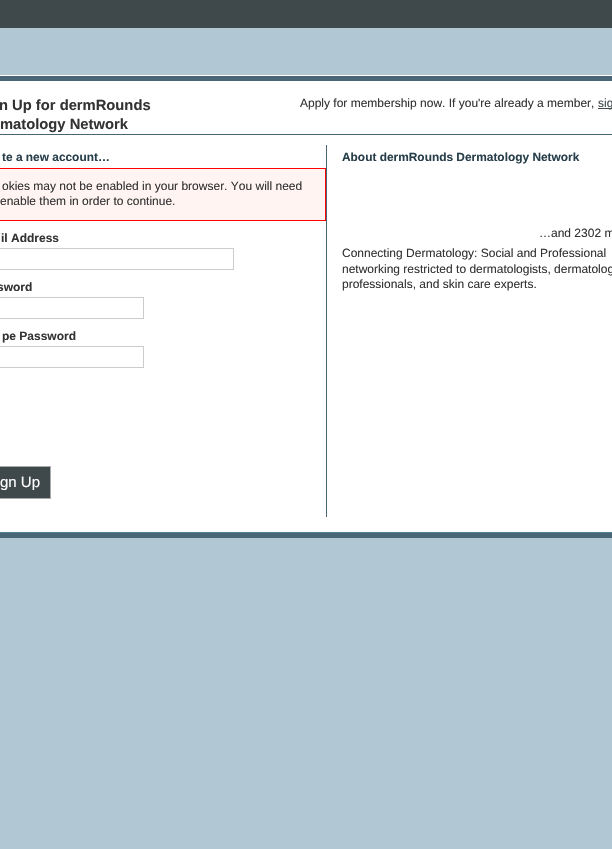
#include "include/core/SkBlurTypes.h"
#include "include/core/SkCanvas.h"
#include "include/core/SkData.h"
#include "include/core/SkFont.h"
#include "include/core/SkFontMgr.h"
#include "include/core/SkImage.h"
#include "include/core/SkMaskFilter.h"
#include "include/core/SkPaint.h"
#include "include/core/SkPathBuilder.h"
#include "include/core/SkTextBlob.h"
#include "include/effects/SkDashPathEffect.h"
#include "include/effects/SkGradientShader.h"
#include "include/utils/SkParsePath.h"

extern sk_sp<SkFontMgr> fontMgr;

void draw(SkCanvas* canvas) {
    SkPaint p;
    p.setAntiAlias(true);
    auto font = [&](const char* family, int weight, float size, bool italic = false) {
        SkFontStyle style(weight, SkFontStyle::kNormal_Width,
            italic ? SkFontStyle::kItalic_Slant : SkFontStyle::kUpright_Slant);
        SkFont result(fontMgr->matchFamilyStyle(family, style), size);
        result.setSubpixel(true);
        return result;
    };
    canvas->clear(0xFFB1C8D4);
    {
        const struct { float l, t, r, b; SkColor color; } items[] = {
            {0, 0, 612, 28, 0xFF3F484B},
            {0, 75, 612, 76, 0xFFFFFFFF},
            {0, 532, 612, 533, 0xFF528097},
        };
        for (auto [l, t, r, b, color] : items) {
            p.setColor(color);
            canvas->drawRect(SkRect::MakeLTRB(l, t, r, b), p);
        }
    }
    p.setStyle(SkPaint::kStroke_Style);
    p.setStrokeWidth(5);
    p.setColor(0xFF486676);
    canvas->drawRect(SkRect::MakeLTRB(-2.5f, 78.5f, 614.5f, 535.5f), p);
    p.setStyle(SkPaint::kFill_Style);
    p.setColor(0xFFFFFFFF);
    canvas->drawRect(SkRect::MakeLTRB(0, 81, 612, 532), p);
    p.setColor(0xFF486676);
    canvas->drawRect(SkRect::MakeLTRB(0, 134, 612, 135), p);
    auto font1 = font("Liberation Sans", 700, 14.75f);
    p.setColor(0xFF333333);
    canvas->drawString("n Up for dermRounds", -1, 110, font1, p);
    canvas->drawString("matology Network", 0, 129, font1, p);
    auto font2 = font("Liberation Sans", 400, 12);
    canvas->drawString("Apply for membership now. If you're already a member,", 300, 107, font2, p);
    p.setColor(0xFF3F484B);
    canvas->drawRect(SkRect::MakeLTRB(598, 108, 612, 109), p);
    canvas->drawString("sig", 598, 107, font2, p);
    p.setColor(0xFF486676);
    canvas->drawRect(SkRect::MakeLTRB(326, 145, 327, 517), p);
    auto font3 = font("Liberation Sans", 700, 11.9f);
    p.setColor(0xFF283F4B);
    canvas->drawString("te a new account…", 2, 161, font3, p);
    p.setColor(0xFFFFF4F2);
    canvas->drawRect(SkRect::MakeLTRB(-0.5f, 168.5f, 325.5f, 220.5f), p);
    p.setStyle(SkPaint::kStroke_Style);
    p.setStrokeWidth(1);
    p.setColor(0xFFFF0000);
    canvas->drawRect(SkRect::MakeLTRB(-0.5f, 168.5f, 325.5f, 220.5f), p);
    p.setStyle(SkPaint::kFill_Style);
    p.setColor(0xFF333333);
    canvas->drawString("okies may not be enabled in your browser. You will need", 2, 190, font2, p);
    canvas->drawString("enable them in order to continue.", 0, 205, font2, p);
    auto font4 = font("Liberation Sans", 700, 12);
    canvas->drawString("il Address", 1, 242, font4, p);
    p.setStyle(SkPaint::kStroke_Style);
    p.setColor(0xFFCCCCCC);
    canvas->drawRect(SkRect::MakeLTRB(-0.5f, 248.5f, 233.5f, 269.5f), p);
    p.setStyle(SkPaint::kFill_Style);
    p.setColor(0xFF333333);
    canvas->drawString("sword", -3, 291, font4, p);
    p.setStyle(SkPaint::kStroke_Style);
    p.setColor(0xFFCCCCCC);
    canvas->drawRect(SkRect::MakeLTRB(-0.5f, 297.5f, 143.5f, 318.5f), p);
    p.setStyle(SkPaint::kFill_Style);
    p.setColor(0xFF333333);
    canvas->drawString("pe Password", 2, 340, font4, p);
    p.setStyle(SkPaint::kStroke_Style);
    p.setColor(0xFFCCCCCC);
    canvas->drawRect(SkRect::MakeLTRB(-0.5f, 346.5f, 143.5f, 367.5f), p);
    p.setStyle(SkPaint::kFill_Style);
    p.setColor(0xFF3F484B);
    canvas->drawRect(SkRect::MakeLTRB(-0.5f, 466.5f, 50.5f, 498.5f), p);
    p.setStyle(SkPaint::kStroke_Style);
    p.setColor(0xFFAAAAAA);
    canvas->drawRect(SkRect::MakeLTRB(-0.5f, 466.5f, 50.5f, 498.5f), p);
    auto font5 = font("Liberation Sans", 400, 15);
    p.setStyle(SkPaint::kFill_Style);
    p.setColor(0xFFFFFFFF);
    canvas->drawString("gn Up", 0, 487, font5, p);
    p.setColor(0xFF283F4B);
    canvas->drawString("About dermRounds Dermatology Network", 342, 161, font3, p);
    p.setColor(0xFF333333);
    {
        const struct { const char* s; float x, y; } items[] = {
            {"…and 2302 m", 539, 237},
            {"Connecting Dermatology: Social and Professional", 342, 257},
            {"networking restricted to dermatologists, dermatolog", 342, 273},
            {"professionals, and skin care experts.", 342, 288},
        };
        for (auto [s, x, y] : items) {
            canvas->drawString(s, x, y, font2, p);
        }
    }
}
